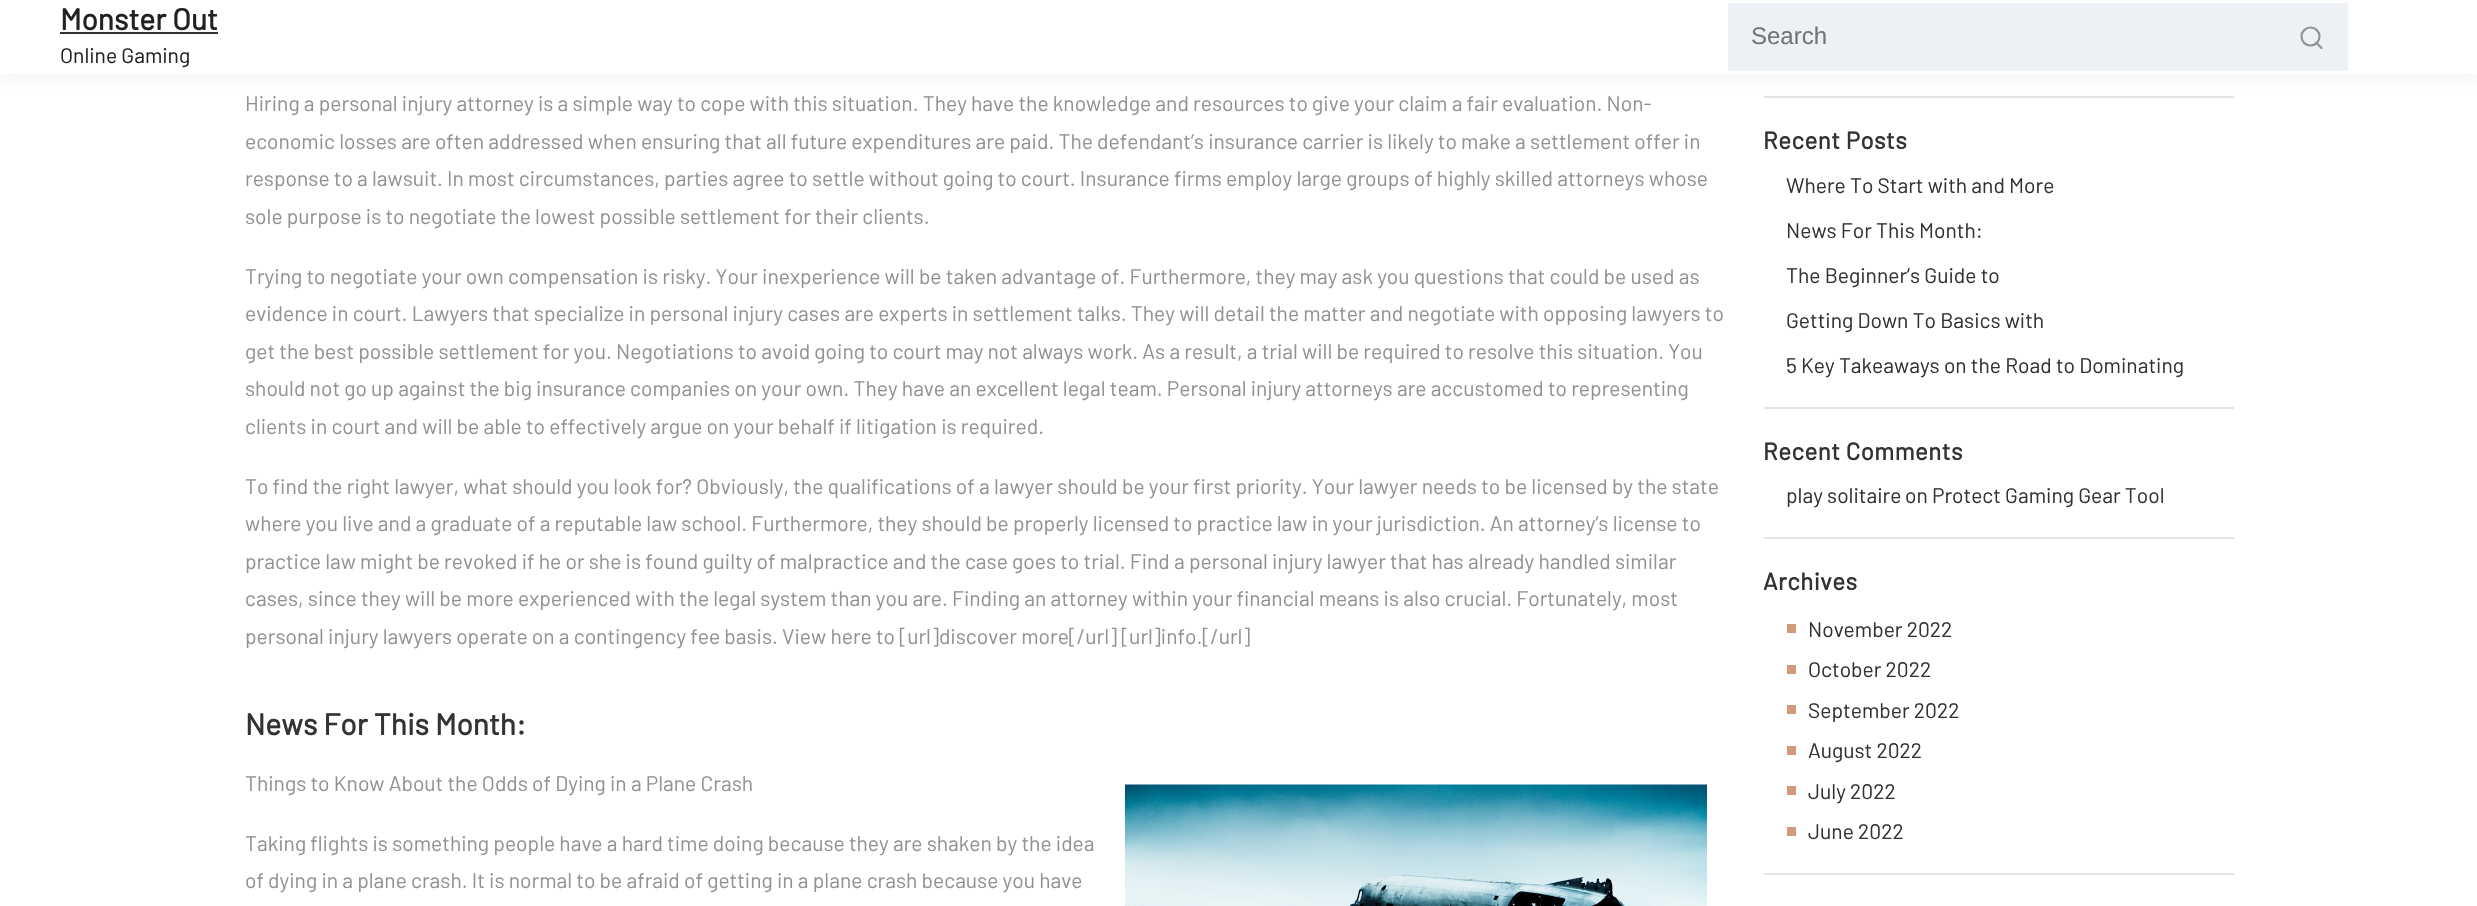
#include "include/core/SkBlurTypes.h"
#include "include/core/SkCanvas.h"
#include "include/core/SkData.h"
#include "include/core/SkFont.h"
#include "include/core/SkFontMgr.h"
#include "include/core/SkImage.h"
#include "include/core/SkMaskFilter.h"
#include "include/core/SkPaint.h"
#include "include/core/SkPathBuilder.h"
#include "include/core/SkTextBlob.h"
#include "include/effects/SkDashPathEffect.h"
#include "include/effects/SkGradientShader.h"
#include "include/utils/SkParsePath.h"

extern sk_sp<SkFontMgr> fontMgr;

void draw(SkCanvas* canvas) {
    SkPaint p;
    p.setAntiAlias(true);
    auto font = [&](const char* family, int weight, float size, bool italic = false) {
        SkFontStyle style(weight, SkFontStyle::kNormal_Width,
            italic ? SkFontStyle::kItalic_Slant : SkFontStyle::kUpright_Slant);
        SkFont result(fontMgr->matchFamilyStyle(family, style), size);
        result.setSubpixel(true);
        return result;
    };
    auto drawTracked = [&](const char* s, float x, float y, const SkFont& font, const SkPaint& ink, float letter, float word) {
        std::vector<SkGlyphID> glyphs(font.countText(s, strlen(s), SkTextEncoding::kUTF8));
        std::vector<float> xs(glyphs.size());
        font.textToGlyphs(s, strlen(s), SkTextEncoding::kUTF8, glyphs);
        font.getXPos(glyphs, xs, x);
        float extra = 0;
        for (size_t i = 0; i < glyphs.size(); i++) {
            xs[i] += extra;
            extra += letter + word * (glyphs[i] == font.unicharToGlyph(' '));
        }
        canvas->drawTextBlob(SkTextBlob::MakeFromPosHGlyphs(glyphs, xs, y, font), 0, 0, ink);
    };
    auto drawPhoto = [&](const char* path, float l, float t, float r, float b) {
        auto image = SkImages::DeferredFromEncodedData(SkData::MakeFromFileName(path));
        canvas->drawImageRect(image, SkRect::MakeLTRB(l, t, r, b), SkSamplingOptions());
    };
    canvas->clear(0xFFFFFFFF);
    p.setColor(0xFFE2E2E2);
    canvas->drawRect(SkRect::MakeLTRB(1764, 96, 2234, 98), p);
    p.setColor(0x0D202020);
    p.setMaskFilter(SkMaskFilter::MakeBlur(kNormal_SkBlurStyle, 7.5f));
    canvas->drawRect(SkRect::MakeLTRB(0, 6, 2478, 80), p);
    p.setMaskFilter(nullptr);
    p.setColor(0xFFFFFFFF);
    canvas->drawRect(SkRect::MakeLTRB(0, 0, 2477, 74), p);
    auto font1 = font("Barlow", 700, 30);
    p.setColor(0xFF222222);
    canvas->drawString("Monster Out", 60, 30, font1, p);
    p.setColor(0xFF333333);
    canvas->drawRect(SkRect::MakeLTRB(60, 32, 218, 34), p);
    auto font2 = font("Barlow", 400, 21);
    p.setColor(0xFF222222);
    canvas->drawString("Online Gaming", 60, 63, font2, p);
    p.setColor(0xFFEDF0F5);
    canvas->drawRect(SkRect::MakeLTRB(1728, 3, 2348, 71), p);
    auto font3 = font("Liberation Sans", 400, 24);
    p.setColor(0xFF757575);
    canvas->drawString("Search", 1751, 44, font3, p);
    p.setStyle(SkPaint::kStroke_Style);
    p.setStrokeWidth(2.2f);
    p.setColor(0xFF929292);
    canvas->drawCircle(2310.5f, 36.5f, 9, p);
    p.setStrokeCap(SkPaint::kRound_Cap);
    p.setStrokeJoin(SkPaint::kRound_Join);
    canvas->drawPath(SkPathBuilder().moveTo(2321.5f, 48).lineTo(2316.5f, 43).detach(), p);
    p.setStyle(SkPaint::kFill_Style);
    {
        const struct { const char* s; float x, y; } items[] = {
            {"Hiring a personal injury attorney is a simple way to cope with this situation. They have the knowledge and resources to give your claim a fair evaluation. Non-", 245, 111},
            {"economic losses are often addressed when ensuring that all future expenditures are paid. The defendant’s insurance carrier is likely to make a settlement offer in", 245, 149},
            {"response to a lawsuit. In most circumstances, parties agree to settle without going to court. Insurance firms employ large groups of highly skilled attorneys whose", 245, 186},
            {"sole purpose is to negotiate the lowest possible settlement for their clients.", 245, 224},
            {"Trying to negotiate your own compensation is risky. Your inexperience will be taken advantage of. Furthermore, they may ask you questions that could be used as", 245, 284},
            {"evidence in court. Lawyers that specialize in personal injury cases are experts in settlement talks. They will detail the matter and negotiate with opposing lawyers to", 245, 321},
            {"get the best possible settlement for you. Negotiations to avoid going to court may not always work. As a result, a trial will be required to resolve this situation. You", 245, 359},
            {"should not go up against the big insurance companies on your own. They have an excellent legal team. Personal injury attorneys are accustomed to representing", 245, 396},
            {"clients in court and will be able to effectively argue on your behalf if litigation is required.", 245, 434},
            {"To find the right lawyer, what should you look for? Obviously, the qualifications of a lawyer should be your first priority. Your lawyer needs to be licensed by the state", 245, 494},
            {"where you live and a graduate of a reputable law school. Furthermore, they should be properly licensed to practice law in your jurisdiction. An attorney’s license to", 245, 531},
            {"practice law might be revoked if he or she is found guilty of malpractice and the case goes to trial. Find a personal injury lawyer that has already handled similar", 245, 569},
            {"cases, since they will be more experienced with the legal system than you are. Finding an attorney within your financial means is also crucial. Fortunately, most", 245, 606},
            {"personal injury lawyers operate on a contingency fee basis. View here to [url]discover more[/url] [url]info.[/url]", 245, 644},
        };
        for (auto [s, x, y] : items) {
            canvas->drawString(s, x, y, font2, p);
        }
    }
    p.setColor(0xFF333333);
    canvas->drawString("News For This Month:", 245, 735, font1, p);
    p.setColor(0xFF929292);
    canvas->drawString("Things to Know About the Odds of Dying in a Plane Crash", 245, 791, font2, p);
    drawPhoto("media/1.png", 1125, 784, 1707, 906);
    canvas->drawString("Taking flights is something people have a hard time doing because they are shaken by the idea", 245, 851, font2, p);
    canvas->drawString("of dying in a plane crash. It is normal to be afraid of getting in a plane crash because you have", 245, 888, font2, p);
    p.setColor(0xFFE2E2E2);
    canvas->drawRect(SkRect::MakeLTRB(1764, 407, 2234, 409), p);
    auto font4 = font("Barlow", 700, 24);
    p.setColor(0xFF333333);
    drawTracked("Recent Posts", 1763, 149, font4, p, 0.5f, 0);
    {
        const struct { const char* s; float x, y; } items[] = {
            {"Where To Start with and More", 1786, 193},
            {"News For This Month:", 1786, 238},
            {"The Beginner’s Guide to", 1786, 283},
            {"Getting Down To Basics with", 1786, 328},
            {"5 Key Takeaways on the Road to Dominating", 1786, 373},
        };
        for (auto [s, x, y] : items) {
            canvas->drawString(s, x, y, font2, p);
        }
    }
    p.setColor(0xFFE2E2E2);
    canvas->drawRect(SkRect::MakeLTRB(1764, 537, 2234, 539), p);
    p.setColor(0xFF333333);
    drawTracked("Recent Comments", 1763, 460, font4, p, 0.5f, 0);
    canvas->drawString("play solitaire", 1786, 503, font2, p);
    canvas->drawString("on Protect Gaming Gear Tool", 1905, 503, font2, p);
    p.setColor(0xFFE2E2E2);
    canvas->drawRect(SkRect::MakeLTRB(1764, 873, 2234, 875), p);
    p.setColor(0xFF333333);
    drawTracked("Archives", 1763, 590, font4, p, 0.5f, 0);
    p.setColor(0xFFD19A7A);
    canvas->drawRect(SkRect::MakeLTRB(1787, 624, 1796, 633), p);
    p.setColor(0xFF333333);
    canvas->drawString("November 2022", 1808, 637, font2, p);
    p.setColor(0xFFD19A7A);
    canvas->drawRect(SkRect::MakeLTRB(1787, 665, 1796, 674), p);
    p.setColor(0xFF333333);
    canvas->drawString("October 2022", 1808, 677, font2, p);
    p.setColor(0xFFD19A7A);
    canvas->drawRect(SkRect::MakeLTRB(1787, 705, 1796, 714), p);
    p.setColor(0xFF333333);
    canvas->drawString("September 2022", 1808, 718, font2, p);
    p.setColor(0xFFD19A7A);
    canvas->drawRect(SkRect::MakeLTRB(1787, 746, 1796, 755), p);
    p.setColor(0xFF333333);
    canvas->drawString("August 2022", 1808, 758, font2, p);
    p.setColor(0xFFD19A7A);
    canvas->drawRect(SkRect::MakeLTRB(1787, 786, 1796, 795), p);
    p.setColor(0xFF333333);
    canvas->drawString("July 2022", 1808, 799, font2, p);
    p.setColor(0xFFD19A7A);
    canvas->drawRect(SkRect::MakeLTRB(1787, 827, 1796, 836), p);
    p.setColor(0xFF333333);
    canvas->drawString("June 2022", 1808, 839, font2, p);
}
